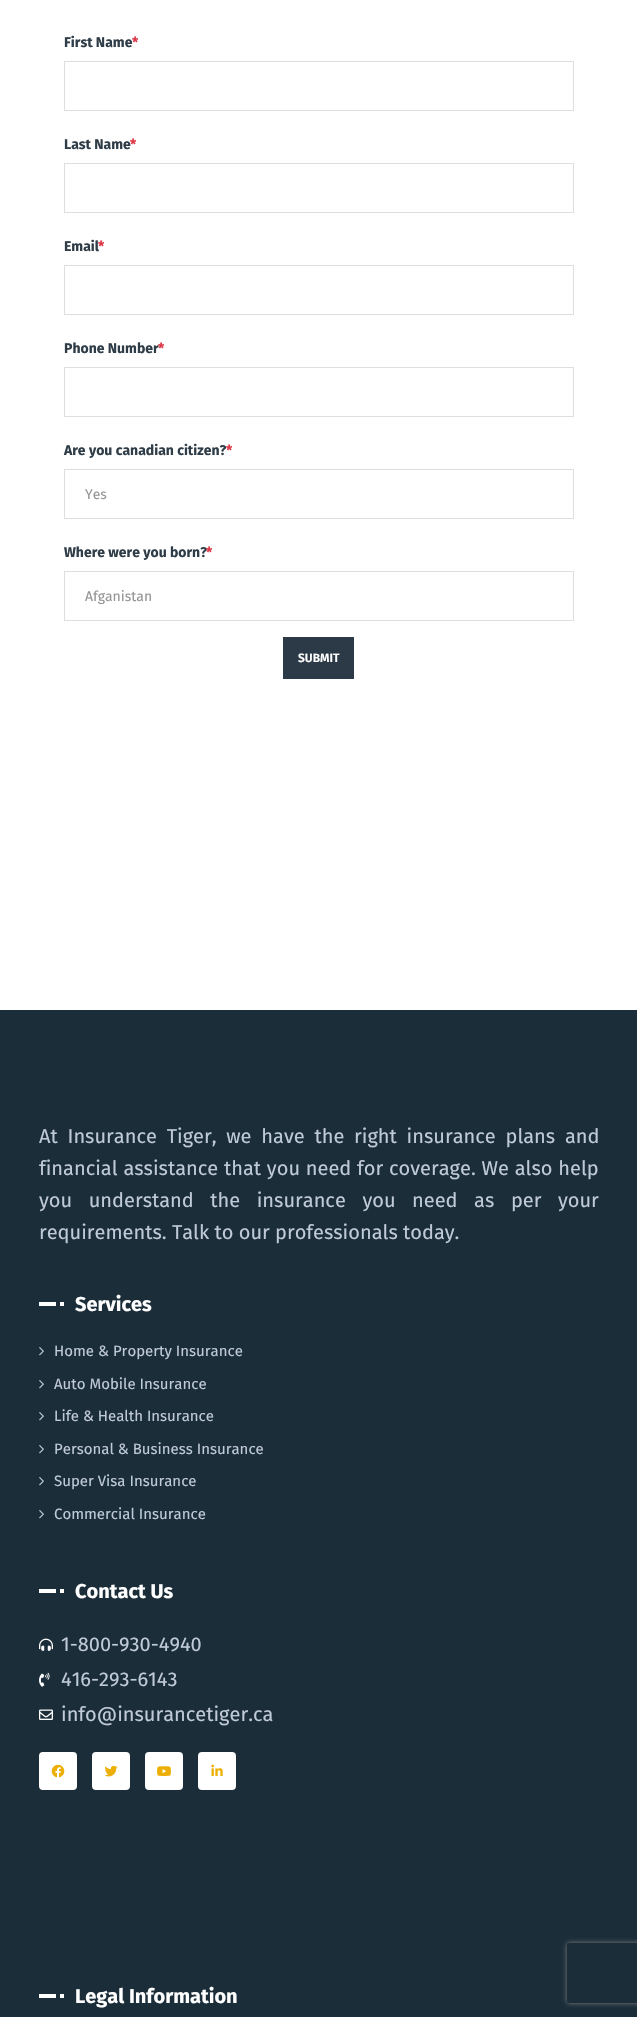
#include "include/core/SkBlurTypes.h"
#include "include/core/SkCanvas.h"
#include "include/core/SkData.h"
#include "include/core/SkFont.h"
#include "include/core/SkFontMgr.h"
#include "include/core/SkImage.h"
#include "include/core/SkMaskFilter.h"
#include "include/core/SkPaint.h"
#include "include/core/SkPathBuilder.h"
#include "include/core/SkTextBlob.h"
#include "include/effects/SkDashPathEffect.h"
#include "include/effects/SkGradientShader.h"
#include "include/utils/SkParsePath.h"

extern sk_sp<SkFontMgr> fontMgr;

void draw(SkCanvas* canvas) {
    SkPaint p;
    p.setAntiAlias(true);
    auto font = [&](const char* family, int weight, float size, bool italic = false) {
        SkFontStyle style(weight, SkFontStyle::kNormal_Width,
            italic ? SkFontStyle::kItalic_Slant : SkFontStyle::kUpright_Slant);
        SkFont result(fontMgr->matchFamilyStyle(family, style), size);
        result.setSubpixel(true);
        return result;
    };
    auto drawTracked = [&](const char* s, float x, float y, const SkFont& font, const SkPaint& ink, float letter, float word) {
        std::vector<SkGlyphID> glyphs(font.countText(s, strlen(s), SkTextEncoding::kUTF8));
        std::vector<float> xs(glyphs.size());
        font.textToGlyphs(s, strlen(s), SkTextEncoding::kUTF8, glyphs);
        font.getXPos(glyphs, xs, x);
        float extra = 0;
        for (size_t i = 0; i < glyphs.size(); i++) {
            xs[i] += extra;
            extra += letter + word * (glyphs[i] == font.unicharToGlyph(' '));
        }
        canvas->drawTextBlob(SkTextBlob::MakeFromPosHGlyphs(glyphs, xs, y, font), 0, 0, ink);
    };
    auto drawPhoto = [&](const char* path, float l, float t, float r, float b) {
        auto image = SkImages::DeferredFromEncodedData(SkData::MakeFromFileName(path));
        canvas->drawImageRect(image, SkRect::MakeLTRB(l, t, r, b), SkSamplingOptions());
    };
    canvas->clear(0xFFFFFFFF);
    auto font1 = font("Fira Sans", 700, 14);
    p.setColor(0xFF2F3D48);
    canvas->drawString("First Name", 64, 47, font1, p);
    p.setColor(0xFFDC3545);
    canvas->drawString("*", 132, 47, font1, p);
    p.setStyle(SkPaint::kStroke_Style);
    p.setStrokeWidth(1);
    p.setColor(0xFFDEDEDE);
    canvas->drawRect(SkRect::MakeLTRB(64.5f, 61.5f, 573.5f, 110.5f), p);
    p.setStyle(SkPaint::kFill_Style);
    p.setColor(0xFF2F3D48);
    canvas->drawString("Last Name", 64, 149, font1, p);
    p.setColor(0xFFDC3545);
    canvas->drawString("*", 130, 149, font1, p);
    p.setStyle(SkPaint::kStroke_Style);
    p.setColor(0xFFDEDEDE);
    canvas->drawRect(SkRect::MakeLTRB(64.5f, 163.5f, 573.5f, 212.5f), p);
    p.setStyle(SkPaint::kFill_Style);
    p.setColor(0xFF2F3D48);
    canvas->drawString("Email", 64, 251, font1, p);
    p.setColor(0xFFDC3545);
    canvas->drawString("*", 98, 251, font1, p);
    p.setStyle(SkPaint::kStroke_Style);
    p.setColor(0xFFDEDEDE);
    canvas->drawRect(SkRect::MakeLTRB(64.5f, 265.5f, 573.5f, 314.5f), p);
    p.setStyle(SkPaint::kFill_Style);
    p.setColor(0xFF2F3D48);
    canvas->drawString("Phone Number", 64, 353, font1, p);
    p.setColor(0xFFDC3545);
    canvas->drawString("*", 158, 353, font1, p);
    p.setStyle(SkPaint::kStroke_Style);
    p.setColor(0xFFDEDEDE);
    canvas->drawRect(SkRect::MakeLTRB(64.5f, 367.5f, 573.5f, 416.5f), p);
    p.setStyle(SkPaint::kFill_Style);
    p.setColor(0xFF2F3D48);
    canvas->drawString("Are you canadian citizen?", 64, 455, font1, p);
    p.setColor(0xFFDC3545);
    canvas->drawString("*", 226, 455, font1, p);
    p.setStyle(SkPaint::kStroke_Style);
    p.setColor(0xFFDEDEDE);
    canvas->drawRect(SkRect::MakeLTRB(64.5f, 469.5f, 573.5f, 518.5f), p);
    auto font2 = font("Fira Sans", 400, 14);
    p.setStyle(SkPaint::kFill_Style);
    p.setColor(0xFF959595);
    canvas->drawString("Yes", 85, 499, font2, p);
    p.setColor(0xFF2F3D48);
    canvas->drawString("Where were you born?", 64, 557, font1, p);
    p.setColor(0xFFDC3545);
    canvas->drawString("*", 206, 557, font1, p);
    p.setStyle(SkPaint::kStroke_Style);
    p.setColor(0xFFDEDEDE);
    canvas->drawRect(SkRect::MakeLTRB(64.5f, 571.5f, 573.5f, 620.5f), p);
    p.setStyle(SkPaint::kFill_Style);
    p.setColor(0xFF959595);
    canvas->drawString("Afganistan", 85, 601, font2, p);
    p.setColor(0xFF2B3A46);
    canvas->drawRect(SkRect::MakeLTRB(283, 637, 354, 679), p);
    auto font3 = font("Fira Sans", 600, 12);
    p.setColor(0xFFFFFFFF);
    canvas->drawString("SUBMIT", 298, 662, font3, p);
    p.setColor(0xFF1A2D39);
    canvas->drawRect(SkRect::MakeLTRB(0, 1010, 637, 2017), p);
    auto font4 = font("Fira Sans", 400, 20);
    p.setColor(0xFFBFCAD6);
    drawTracked("At Insurance Tiger, we have the right insurance plans and", 39, 1143, font4, p, 0, 4.5f);
    drawTracked("financial assistance that you need for coverage. We also help", 39, 1175, font4, p, 0, 0.5f);
    drawTracked("you understand the insurance you need as per your", 39, 1207, font4, p, 0, 11.25f);
    canvas->drawString("requirements. Talk to our professionals today.", 39, 1239, font4, p);
    p.setColor(0xFFFFFFFF);
    canvas->drawRect(SkRect::MakeLTRB(39, 1302, 56, 1306), p);
    canvas->drawRect(SkRect::MakeLTRB(60, 1302, 64, 1306), p);
    auto font5 = font("Fira Sans", 700, 20);
    canvas->drawString("Services", 75, 1311, font5, p);
    drawPhoto("media/1.png", 39, 1347, 44, 1356);
    auto font6 = font("Fira Sans", 400, 15);
    p.setColor(0xFFBFCAD6);
    canvas->drawString("Home & Property Insurance", 54, 1356, font6, p);
    drawPhoto("media/1.png", 39, 1380, 44, 1389);
    canvas->drawString("Auto Mobile Insurance", 54, 1389, font6, p);
    drawPhoto("media/1.png", 39, 1412, 44, 1421);
    canvas->drawString("Life & Health Insurance", 54, 1421, font6, p);
    drawPhoto("media/1.png", 39, 1445, 44, 1454);
    canvas->drawString("Personal & Business Insurance", 54, 1454, font6, p);
    drawPhoto("media/1.png", 39, 1477, 44, 1486);
    canvas->drawString("Super Visa Insurance", 54, 1486, font6, p);
    drawPhoto("media/1.png", 39, 1510, 44, 1519);
    canvas->drawString("Commercial Insurance", 54, 1519, font6, p);
    p.setColor(0xFFFFFFFF);
    canvas->drawRect(SkRect::MakeLTRB(39, 1589, 56, 1593), p);
    canvas->drawRect(SkRect::MakeLTRB(60, 1589, 64, 1593), p);
    canvas->drawString("Contact Us", 75, 1598, font5, p);
    drawPhoto("media/2.png", 39, 1638, 53, 1651);
    p.setColor(0xFFBFCAD6);
    canvas->drawString("1-800-930-4940", 61, 1651, font4, p);
    drawPhoto("media/3.png", 39, 1672, 50, 1687);
    canvas->drawString("416-293-6143", 61, 1686, font4, p);
    drawPhoto("media/4.png", 39, 1709, 53, 1720);
    canvas->drawString("info@insurancetiger.ca", 61, 1721, font4, p);
    p.setColor(0xFFFFFFFF);
    canvas->drawRoundRect(SkRect::MakeLTRB(40, 1753, 76, 1789), 3, 3, p);
    p.setStyle(SkPaint::kStroke_Style);
    p.setStrokeWidth(2);
    canvas->drawRoundRect(SkRect::MakeLTRB(40, 1753, 76, 1789), 3, 3, p);
    drawPhoto("media/5.png", 51, 1764, 65, 1778);
    p.setStyle(SkPaint::kFill_Style);
    canvas->drawRoundRect(SkRect::MakeLTRB(93, 1753, 129, 1789), 3, 3, p);
    p.setStyle(SkPaint::kStroke_Style);
    canvas->drawRoundRect(SkRect::MakeLTRB(93, 1753, 129, 1789), 3, 3, p);
    drawPhoto("media/6.png", 104, 1765, 118, 1777);
    p.setStyle(SkPaint::kFill_Style);
    canvas->drawRoundRect(SkRect::MakeLTRB(146, 1753, 182, 1789), 3, 3, p);
    p.setStyle(SkPaint::kStroke_Style);
    canvas->drawRoundRect(SkRect::MakeLTRB(146, 1753, 182, 1789), 3, 3, p);
    drawPhoto("media/7.png", 157, 1766, 171, 1776);
    p.setStyle(SkPaint::kFill_Style);
    canvas->drawRoundRect(SkRect::MakeLTRB(199, 1753, 235, 1789), 3, 3, p);
    p.setStyle(SkPaint::kStroke_Style);
    canvas->drawRoundRect(SkRect::MakeLTRB(199, 1753, 235, 1789), 3, 3, p);
    drawPhoto("media/8.png", 211, 1764, 223, 1776);
    p.setStyle(SkPaint::kFill_Style);
    canvas->drawRect(SkRect::MakeLTRB(39, 1994, 56, 1998), p);
    canvas->drawRect(SkRect::MakeLTRB(60, 1994, 64, 1998), p);
    canvas->drawString("Legal Information", 75, 2003, font5, p);
    canvas->save();
    canvas->clipPath(SkPathBuilder(SkPathFillType::kEvenOdd).moveTo(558, 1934).lineTo(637, 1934).lineTo(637, 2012).lineTo(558, 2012).close().moveTo(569, 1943).lineTo(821, 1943).cubicTo(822, 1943, 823, 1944, 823, 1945).lineTo(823, 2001).cubicTo(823, 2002, 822, 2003, 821, 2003).lineTo(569, 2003).cubicTo(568, 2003, 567, 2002, 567, 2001).lineTo(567, 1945).cubicTo(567, 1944, 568, 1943, 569, 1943).close().detach(), true);
    p.setColor(0xFF808080);
    p.setMaskFilter(SkMaskFilter::MakeBlur(kNormal_SkBlurStyle, 2.5f));
    canvas->drawRoundRect(SkRect::MakeLTRB(567, 1943, 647, 2003), 2, 2, p);
    p.setMaskFilter(nullptr);
    canvas->restore();
}
